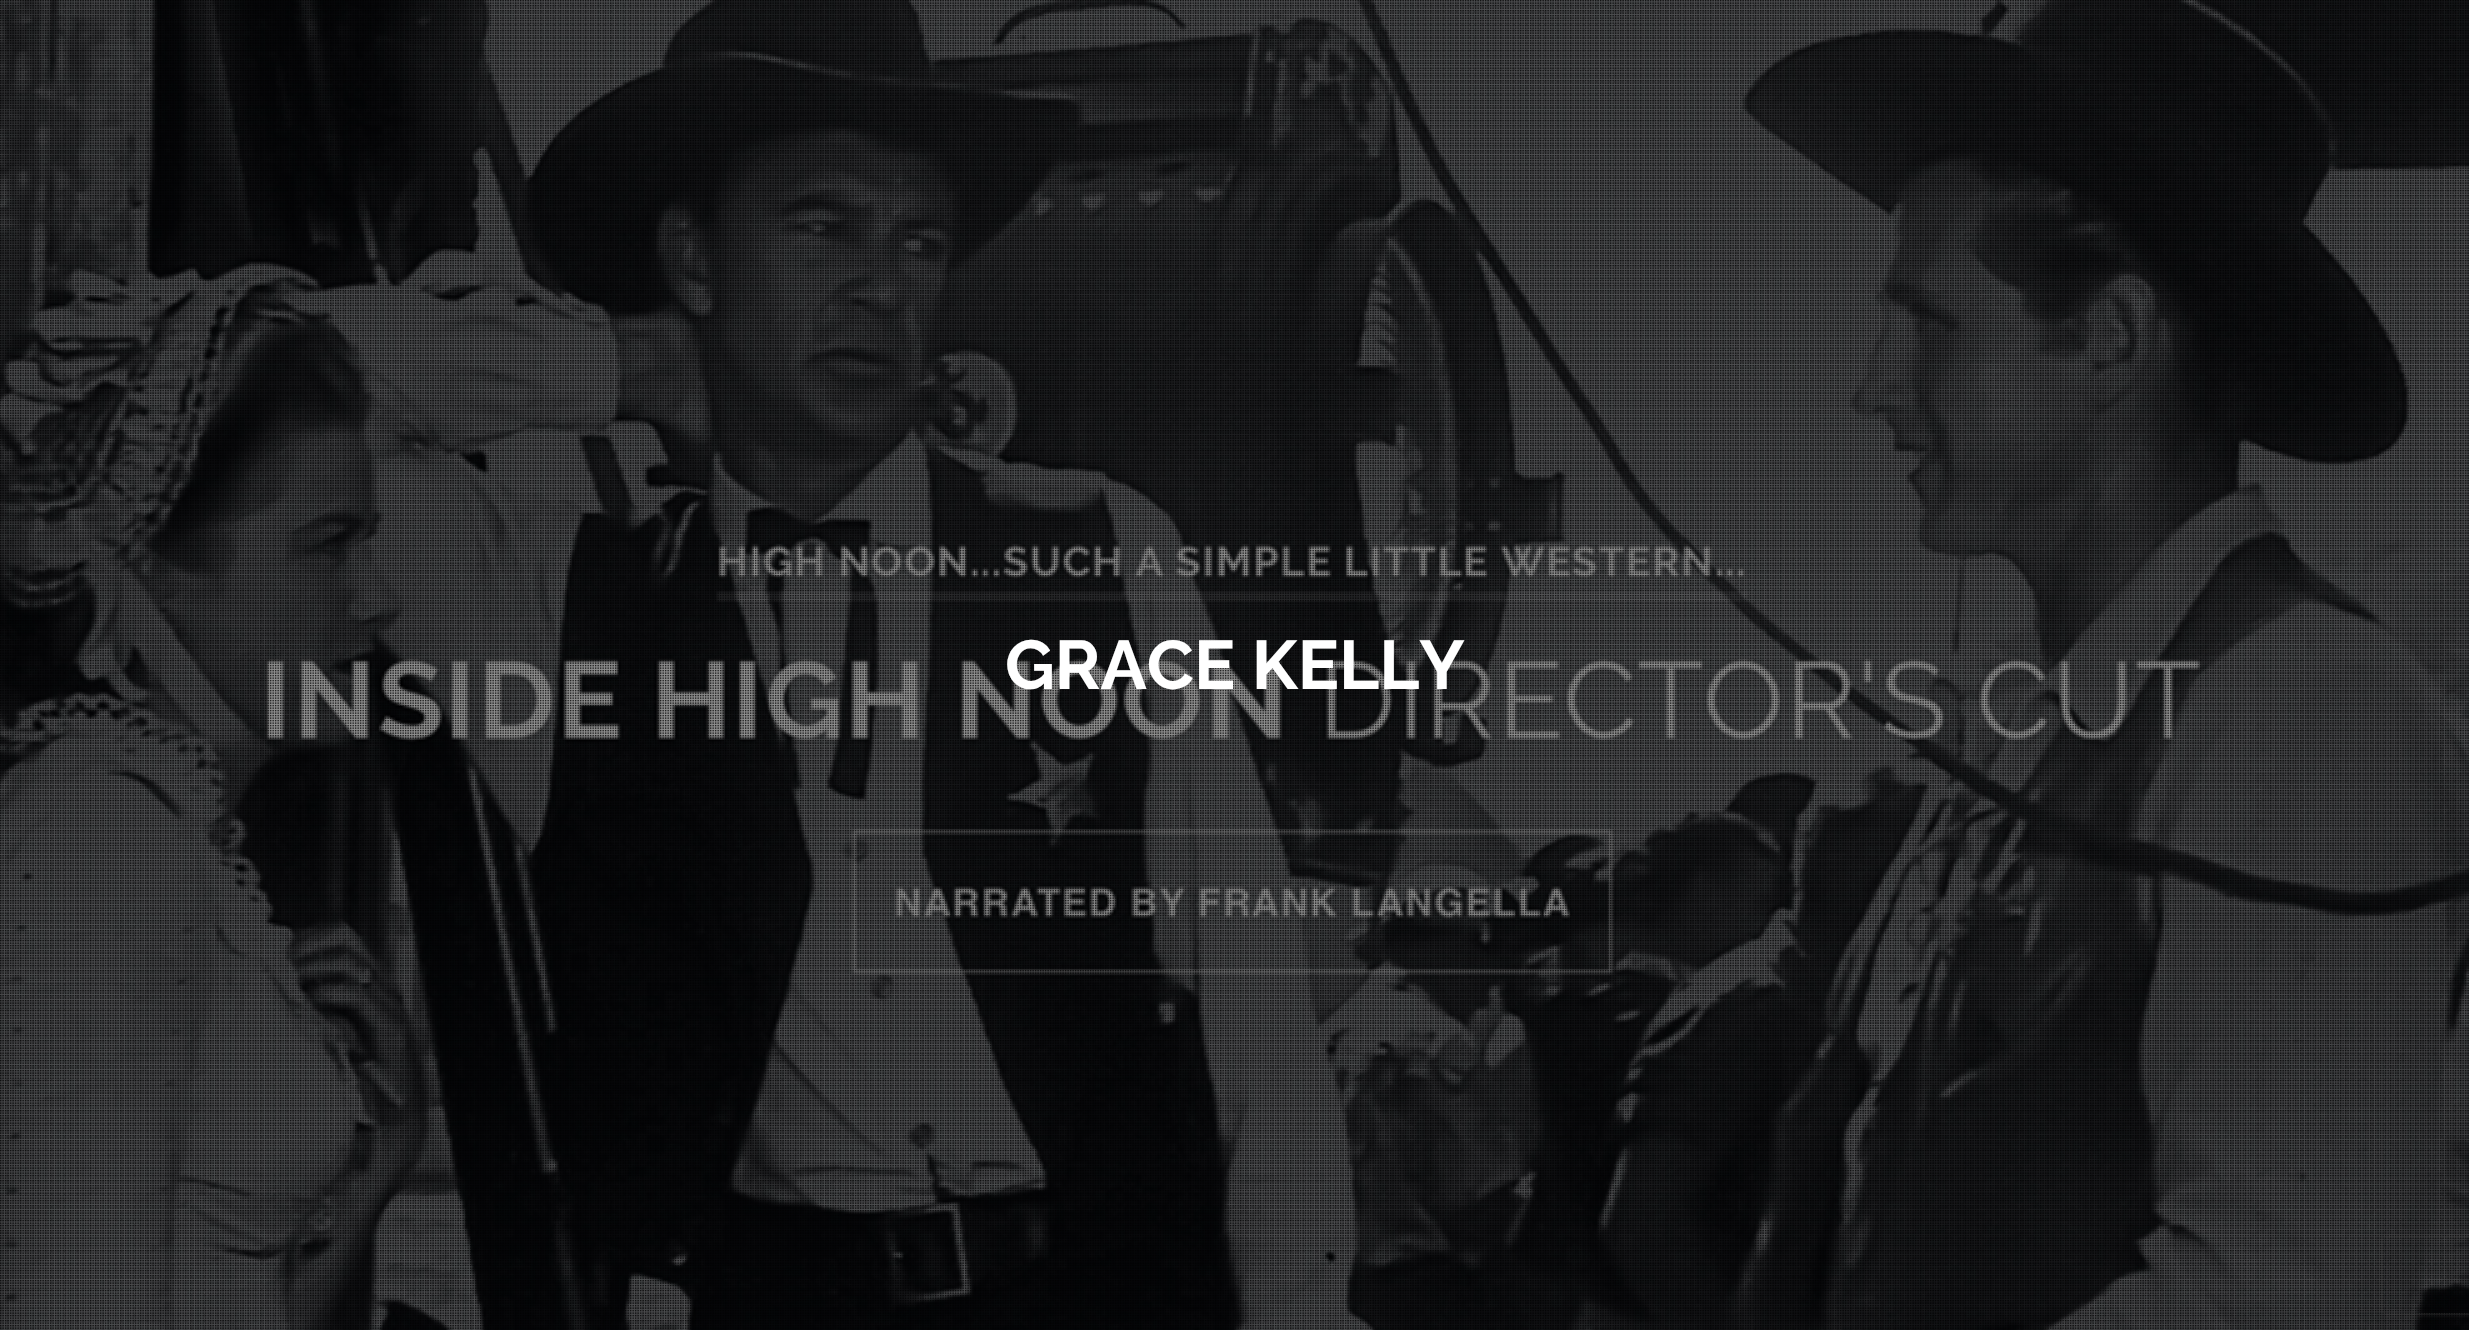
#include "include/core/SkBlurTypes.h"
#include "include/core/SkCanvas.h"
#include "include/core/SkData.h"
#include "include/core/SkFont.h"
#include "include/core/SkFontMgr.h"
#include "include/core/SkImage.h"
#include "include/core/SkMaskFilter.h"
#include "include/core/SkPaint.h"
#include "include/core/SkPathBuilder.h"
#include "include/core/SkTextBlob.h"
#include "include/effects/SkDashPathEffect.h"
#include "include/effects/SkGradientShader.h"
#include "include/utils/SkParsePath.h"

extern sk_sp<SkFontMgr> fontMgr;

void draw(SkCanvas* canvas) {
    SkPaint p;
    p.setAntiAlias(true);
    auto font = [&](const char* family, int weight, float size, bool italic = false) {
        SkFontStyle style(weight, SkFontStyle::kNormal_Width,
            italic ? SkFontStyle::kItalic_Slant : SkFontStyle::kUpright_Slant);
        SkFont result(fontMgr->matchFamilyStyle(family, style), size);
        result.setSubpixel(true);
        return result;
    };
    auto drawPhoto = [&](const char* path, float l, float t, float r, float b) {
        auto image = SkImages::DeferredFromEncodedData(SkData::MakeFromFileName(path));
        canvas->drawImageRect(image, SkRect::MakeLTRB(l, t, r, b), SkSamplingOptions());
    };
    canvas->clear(0xFFFFFFFF);
    drawPhoto("media/1.png", 0, 0, 2469, 1330);
    canvas->save();
    canvas->clipPath(SkPathBuilder(SkPathFillType::kEvenOdd).moveTo(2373, 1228).lineTo(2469, 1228).lineTo(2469, 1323).lineTo(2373, 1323).close().moveTo(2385.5f, 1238).lineTo(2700.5f, 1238).cubicTo(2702, 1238, 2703, 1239, 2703, 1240.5f).lineTo(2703, 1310.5f).cubicTo(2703, 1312, 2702, 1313, 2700.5f, 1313).lineTo(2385.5f, 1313).cubicTo(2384, 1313, 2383, 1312, 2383, 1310.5f).lineTo(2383, 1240.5f).cubicTo(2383, 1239, 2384, 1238, 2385.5f, 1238).close().detach(), true);
    p.setColor(0xFF808080);
    p.setMaskFilter(SkMaskFilter::MakeBlur(kNormal_SkBlurStyle, 3));
    canvas->drawRoundRect(SkRect::MakeLTRB(2383, 1238, 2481, 1313), 2.5f, 2.5f, p);
    p.setMaskFilter(nullptr);
    canvas->restore();
    drawPhoto("media/2.png", 0, 0, 2469, 1330);
    auto font1 = font("Raleway", 700, 68.75f);
    p.setColor(0xFFFFFFFF);
    canvas->drawString("GRACE KELLY", 1005, 689, font1, p);
}
